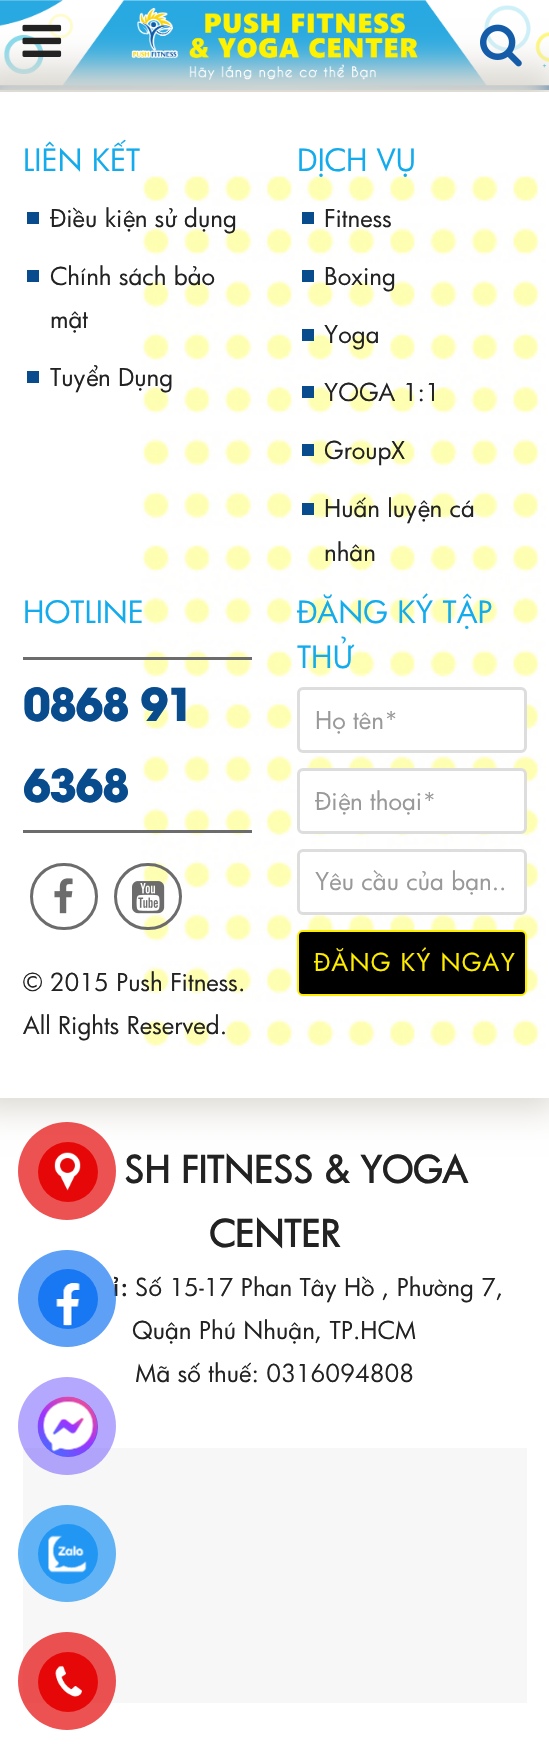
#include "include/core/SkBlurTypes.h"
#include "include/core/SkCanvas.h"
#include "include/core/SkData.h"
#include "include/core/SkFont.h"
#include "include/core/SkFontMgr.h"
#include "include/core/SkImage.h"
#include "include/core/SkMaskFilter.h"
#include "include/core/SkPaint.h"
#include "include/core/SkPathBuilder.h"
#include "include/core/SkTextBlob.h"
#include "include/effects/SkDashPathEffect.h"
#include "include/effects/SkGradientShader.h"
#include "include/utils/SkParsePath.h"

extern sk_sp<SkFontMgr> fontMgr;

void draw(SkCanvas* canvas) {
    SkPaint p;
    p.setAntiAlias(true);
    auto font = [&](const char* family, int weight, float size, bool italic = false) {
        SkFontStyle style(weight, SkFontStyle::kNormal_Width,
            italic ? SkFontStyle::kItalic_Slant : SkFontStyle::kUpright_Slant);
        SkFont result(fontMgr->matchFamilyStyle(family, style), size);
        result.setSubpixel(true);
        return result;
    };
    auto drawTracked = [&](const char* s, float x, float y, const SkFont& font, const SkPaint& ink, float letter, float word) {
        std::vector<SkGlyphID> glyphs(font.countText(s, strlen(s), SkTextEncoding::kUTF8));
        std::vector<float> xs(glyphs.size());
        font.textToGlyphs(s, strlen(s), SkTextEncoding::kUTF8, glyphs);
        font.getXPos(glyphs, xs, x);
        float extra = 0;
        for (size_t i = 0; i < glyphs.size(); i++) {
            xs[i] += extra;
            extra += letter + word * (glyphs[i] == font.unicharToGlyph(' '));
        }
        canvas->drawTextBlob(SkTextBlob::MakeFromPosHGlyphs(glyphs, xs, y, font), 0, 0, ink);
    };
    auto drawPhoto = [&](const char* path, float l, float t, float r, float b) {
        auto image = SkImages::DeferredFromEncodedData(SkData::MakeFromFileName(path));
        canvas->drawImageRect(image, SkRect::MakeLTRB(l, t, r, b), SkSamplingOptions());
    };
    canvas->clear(0xFFFFFFFF);
    drawPhoto("media/1.png", 0, 0, 549, 90);
    drawPhoto("media/5.png", 141, 172, 546, 1049);
    canvas->save();
    canvas->clipPath(SkPathBuilder(SkPathFillType::kEvenOdd).moveTo(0, 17).lineTo(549, 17).lineTo(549, 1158).lineTo(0, 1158).close().moveTo(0, 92).lineTo(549, 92).lineTo(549, 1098).lineTo(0, 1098).close().detach(), true);
    p.setColor(0xFFDCD9D2);
    p.setMaskFilter(SkMaskFilter::MakeBlur(kNormal_SkBlurStyle, 16));
    canvas->drawRect(SkRect::MakeLTRB(-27, 66, 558, 1109), p);
    p.setMaskFilter(nullptr);
    canvas->restore();
    drawPhoto("media/2.png", 22, 24, 62, 57);
    drawPhoto("media/3.png", 131, 7, 418, 80);
    drawPhoto("media/4.png", 480, 24, 522, 67);
    auto font1 = font("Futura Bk", 400, 30);
    p.setColor(0xFF14ABEC);
    canvas->drawString("LIÊN KẾT", 23, 171, font1, p);
    p.setColor(0xFF094C8E);
    canvas->drawRect(SkRect::MakeLTRB(27, 212, 39, 224), p);
    auto font2 = font("Futura Bk", 400, 24);
    p.setColor(0xFF222222);
    canvas->drawString("Điều kiện sử dụng", 50, 227, font2, p);
    p.setColor(0xFF094C8E);
    canvas->drawRect(SkRect::MakeLTRB(27, 270, 39, 282), p);
    p.setColor(0xFF222222);
    canvas->drawString("Chính sách bảo", 50, 285, font2, p);
    canvas->drawString("mật", 50, 328, font2, p);
    p.setColor(0xFF094C8E);
    canvas->drawRect(SkRect::MakeLTRB(27, 371, 39, 383), p);
    p.setColor(0xFF222222);
    canvas->drawString("Tuyển Dụng", 50, 386, font2, p);
    p.setColor(0xFF14ABEC);
    canvas->drawString("DỊCH VỤ", 297, 171, font1, p);
    p.setColor(0xFF094C8E);
    canvas->drawRect(SkRect::MakeLTRB(302, 212, 314, 224), p);
    p.setColor(0xFF222222);
    canvas->drawString("Fitness", 324, 227, font2, p);
    p.setColor(0xFF094C8E);
    canvas->drawRect(SkRect::MakeLTRB(302, 270, 314, 282), p);
    p.setColor(0xFF222222);
    canvas->drawString("Boxing", 324, 285, font2, p);
    p.setColor(0xFF094C8E);
    canvas->drawRect(SkRect::MakeLTRB(302, 329, 314, 341), p);
    p.setColor(0xFF222222);
    canvas->drawString("Yoga", 324, 343, font2, p);
    p.setColor(0xFF094C8E);
    canvas->drawRect(SkRect::MakeLTRB(302, 386, 314, 398), p);
    p.setColor(0xFF222222);
    canvas->drawString("YOGA 1:1", 324, 401, font2, p);
    p.setColor(0xFF094C8E);
    canvas->drawRect(SkRect::MakeLTRB(302, 444, 314, 456), p);
    p.setColor(0xFF222222);
    canvas->drawString("GroupX", 324, 459, font2, p);
    p.setColor(0xFF094C8E);
    canvas->drawRect(SkRect::MakeLTRB(302, 503, 314, 515), p);
    p.setColor(0xFF222222);
    canvas->drawString("Huấn luyện cá", 324, 517, font2, p);
    canvas->drawString("nhân", 324, 561, font2, p);
    p.setColor(0xFF14ABEC);
    canvas->drawString("HOTLINE", 23, 623, font1, p);
    p.setColor(0xFF6C6C6C);
    canvas->drawRect(SkRect::MakeLTRB(23, 657, 252, 660), p);
    canvas->drawRect(SkRect::MakeLTRB(23, 830, 252, 833), p);
    auto font3 = font("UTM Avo", 700, 45);
    p.setColor(0xFF094C8E);
    drawTracked("0868 91", 23, 721, font3, p, -1.5f, 0);
    drawTracked("6368", 23, 802, font3, p, -1.5f, 0);
    p.setStyle(SkPaint::kStroke_Style);
    p.setStrokeWidth(3);
    p.setColor(0xFF6C6C6C);
    canvas->drawRoundRect(SkRect::MakeLTRB(31.5f, 864.5f, 96.5f, 928.5f), 32, 32, p);
    drawPhoto("media/6.png", 54, 878, 73, 914);
    canvas->drawRoundRect(SkRect::MakeLTRB(115.5f, 864.5f, 180.5f, 928.5f), 32, 32, p);
    drawPhoto("media/7.png", 132, 881, 165, 914);
    p.setStyle(SkPaint::kFill_Style);
    p.setColor(0xFF222222);
    canvas->drawString("© 2015 Push Fitness.", 23, 991, font2, p);
    canvas->drawString("All Rights Reserved.", 23, 1034, font2, p);
    p.setColor(0xFF14ABEC);
    canvas->drawString("ĐĂNG KÝ TẬP", 297, 623, font1, p);
    canvas->drawString("THỬ", 297, 668, font1, p);
    p.setColor(0xFFFFFFFF);
    canvas->drawRoundRect(SkRect::MakeLTRB(298.5f, 688.5f, 525.5f, 751.5f), 4.5f, 4.5f, p);
    p.setStyle(SkPaint::kStroke_Style);
    p.setColor(0xFFDDDDDD);
    canvas->drawRoundRect(SkRect::MakeLTRB(298.5f, 688.5f, 525.5f, 751.5f), 4.5f, 4.5f, p);
    p.setStyle(SkPaint::kFill_Style);
    p.setColor(0xFF999999);
    canvas->drawString("Họ tên*", 315, 729, font2, p);
    p.setColor(0xFFFFFFFF);
    canvas->drawRoundRect(SkRect::MakeLTRB(298.5f, 769.5f, 525.5f, 832.5f), 4.5f, 4.5f, p);
    p.setStyle(SkPaint::kStroke_Style);
    p.setColor(0xFFDDDDDD);
    canvas->drawRoundRect(SkRect::MakeLTRB(298.5f, 769.5f, 525.5f, 832.5f), 4.5f, 4.5f, p);
    p.setStyle(SkPaint::kFill_Style);
    p.setColor(0xFF999999);
    canvas->drawString("Điện thoại*", 315, 810, font2, p);
    p.setColor(0xFFFFFFFF);
    canvas->drawRoundRect(SkRect::MakeLTRB(298.5f, 850.5f, 525.5f, 913.5f), 4.5f, 4.5f, p);
    p.setStyle(SkPaint::kStroke_Style);
    p.setColor(0xFFDDDDDD);
    canvas->drawRoundRect(SkRect::MakeLTRB(298.5f, 850.5f, 525.5f, 913.5f), 4.5f, 4.5f, p);
    p.setStyle(SkPaint::kFill_Style);
    p.setColor(0xFF999999);
    canvas->drawString("Yêu cầu của bạn..", 315, 890, font2, p);
    p.setColor(0xFF000000);
    canvas->drawRoundRect(SkRect::MakeLTRB(298, 931, 526, 995), 5, 5, p);
    p.setStyle(SkPaint::kStroke_Style);
    p.setStrokeWidth(2);
    p.setColor(0xFFFFED00);
    canvas->drawRoundRect(SkRect::MakeLTRB(298, 931, 526, 995), 5, 5, p);
    p.setStyle(SkPaint::kFill_Style);
    drawTracked("ĐĂNG KÝ NGAY", 314, 971, font2, p, 1.25f, 0);
    auto font4 = font("Futura Bk", 700, 36);
    p.setColor(0xFF222222);
    canvas->drawString("SH FITNESS & YOGA", 124, 1183, font4, p);
    canvas->drawString("CENTER", 209, 1247, font4, p);
    auto font5 = font("Futura Bk", 700, 24);
    canvas->drawString("ỉ:", 114, 1296, font5, p);
    {
        const struct { const char* s; float x, y; } items[] = {
            {"Số 15-17 Phan Tây Hồ , Phường 7,", 135, 1296},
            {"Quận Phú Nhuận, TP.HCM", 132, 1339},
            {"Mã số thuế: 0316094808", 135, 1382},
        };
        for (auto [s, x, y] : items) {
            canvas->drawString(s, x, y, font2, p);
        }
    }
    p.setColor(0xFFF7F7F7);
    canvas->drawRect(SkRect::MakeLTRB(23, 1448, 527, 1703), p);
    p.setColor(0xB3E60808);
    canvas->drawCircle(67, 1171, 49, p);
    p.setColor(0xFFE60808);
    canvas->drawCircle(68, 1172, 30, p);
    drawPhoto("media/8.png", 54, 1152, 81, 1191);
    p.setColor(0xB31877F2);
    canvas->drawRoundRect(SkRect::MakeLTRB(18, 1250, 116, 1347), 48.5f, 48.5f, p);
    p.setColor(0xFF1877F2);
    canvas->drawCircle(68, 1299, 30, p);
    drawPhoto("media/9.png", 56, 1283, 80, 1326);
    p.setColor(0x806A4FFE);
    canvas->drawCircle(67, 1426, 49, p);
    p.setColor(0xFF6A4FFE);
    canvas->drawCircle(68, 1427, 30, p);
    drawPhoto("media/10.png", 37, 1396, 98, 1457);
    p.setColor(0xB32196F3);
    canvas->drawRoundRect(SkRect::MakeLTRB(18, 1505, 116, 1602), 48.5f, 48.5f, p);
    p.setColor(0xFF2196F3);
    canvas->drawCircle(68, 1554, 30, p);
    drawPhoto("media/11.png", 48, 1535, 87, 1573);
    p.setColor(0xB3E60808);
    canvas->drawCircle(67, 1681, 49, p);
    p.setColor(0xFFE60808);
    canvas->drawCircle(68, 1682, 30, p);
    drawPhoto("media/12.png", 55, 1665, 82, 1697);
}
